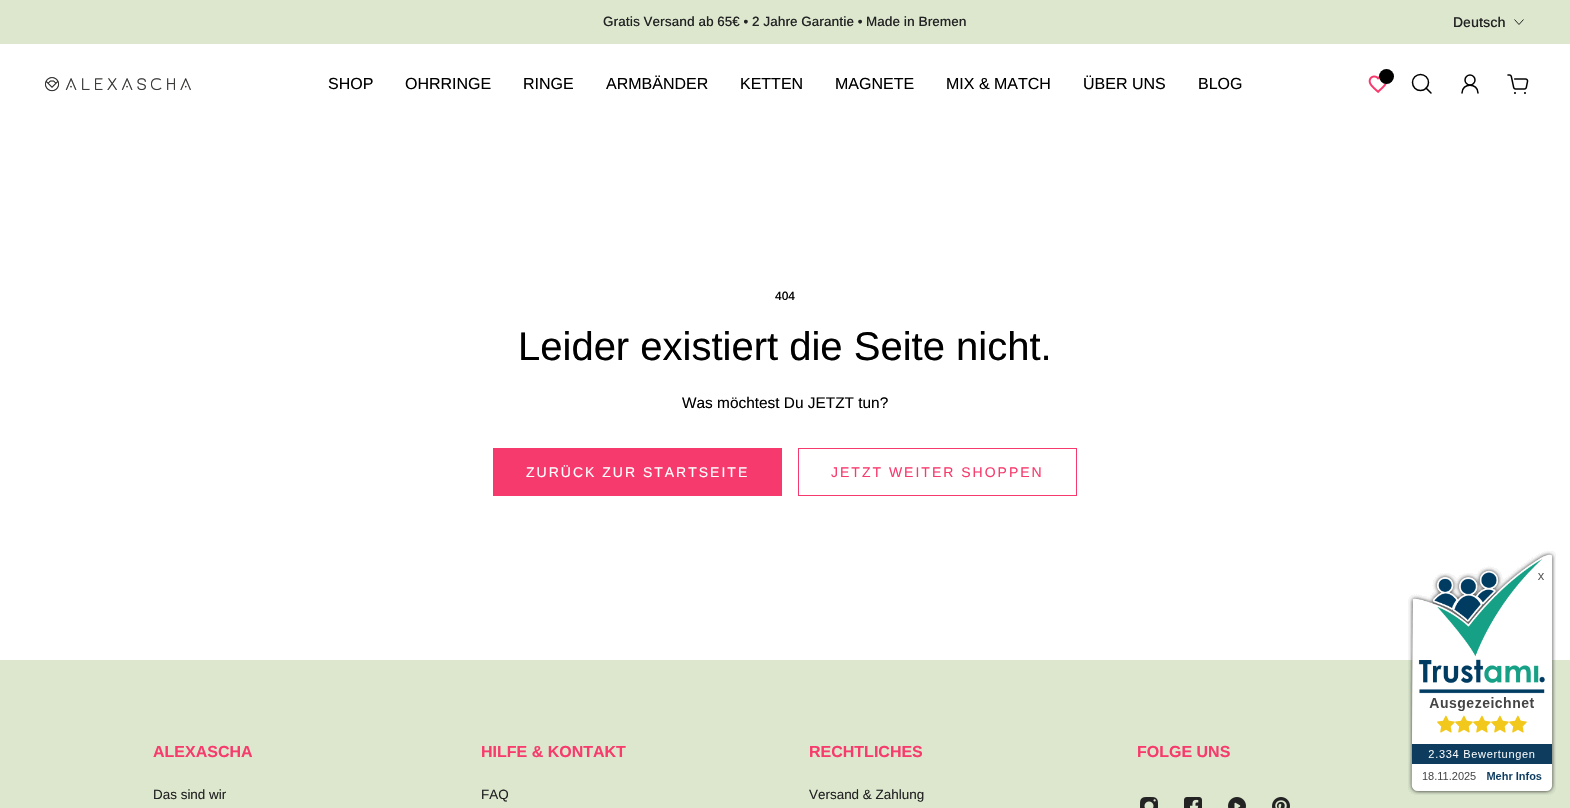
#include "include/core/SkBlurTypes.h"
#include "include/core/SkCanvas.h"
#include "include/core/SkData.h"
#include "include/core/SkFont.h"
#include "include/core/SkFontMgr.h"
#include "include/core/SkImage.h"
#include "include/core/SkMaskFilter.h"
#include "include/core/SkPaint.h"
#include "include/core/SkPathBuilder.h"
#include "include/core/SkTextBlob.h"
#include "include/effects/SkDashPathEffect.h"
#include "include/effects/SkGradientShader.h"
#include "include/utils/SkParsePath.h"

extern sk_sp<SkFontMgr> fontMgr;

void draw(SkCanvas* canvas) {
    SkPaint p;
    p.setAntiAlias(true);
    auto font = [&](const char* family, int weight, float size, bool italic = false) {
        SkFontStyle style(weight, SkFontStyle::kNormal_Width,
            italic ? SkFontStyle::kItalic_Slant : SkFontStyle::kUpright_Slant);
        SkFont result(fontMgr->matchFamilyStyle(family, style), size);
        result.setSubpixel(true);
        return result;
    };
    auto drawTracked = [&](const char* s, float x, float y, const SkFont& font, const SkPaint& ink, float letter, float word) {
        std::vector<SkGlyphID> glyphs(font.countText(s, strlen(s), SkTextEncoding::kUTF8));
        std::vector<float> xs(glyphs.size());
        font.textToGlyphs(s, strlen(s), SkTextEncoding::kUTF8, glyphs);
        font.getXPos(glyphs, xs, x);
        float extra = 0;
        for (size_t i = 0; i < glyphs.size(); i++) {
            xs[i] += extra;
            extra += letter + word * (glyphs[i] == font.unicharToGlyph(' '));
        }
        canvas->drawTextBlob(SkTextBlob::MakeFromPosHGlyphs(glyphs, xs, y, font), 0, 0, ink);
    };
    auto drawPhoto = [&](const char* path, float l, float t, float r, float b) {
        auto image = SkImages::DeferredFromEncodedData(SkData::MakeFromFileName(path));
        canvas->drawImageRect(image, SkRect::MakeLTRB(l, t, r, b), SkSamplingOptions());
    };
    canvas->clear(0xFFFFFFFF);
    p.setColor(0xFFDCE7CE);
    canvas->drawRect(SkRect::MakeLTRB(0, 0, 1570, 44), p);
    auto font1 = font("Arimo", 500, 13.45f);
    p.setColor(0xFF232323);
    canvas->drawString("Gratis Versand ab 65€ • 2 Jahre Garantie • Made in Bremen", 603, 26, font1, p);
    auto font2 = font("Arimo", 500, 14);
    canvas->drawString("Deutsch", 1453, 27, font2, p);
    p.setStyle(SkPaint::kStroke_Style);
    p.setStrokeWidth(1);
    canvas->drawPath(SkPathBuilder().moveTo(1523.5f, 19.5f).lineTo(1519, 24.5f).lineTo(1514.5f, 19.5f).detach(), p);
    drawPhoto("media/1.png", 45, 77, 191, 92);
    auto font3 = font("Arimo", 400, 16);
    p.setStyle(SkPaint::kFill_Style);
    p.setColor(0xFF000000);
    {
        const struct { const char* s; float x, y; } items[] = {
            {"SHOP", 328, 89},
            {"OHRRINGE", 405, 89},
            {"RINGE", 523, 89},
            {"ARMBÄNDER", 606, 89},
            {"KETTEN", 740, 89},
            {"MAGNETE", 835, 89},
            {"MIX & MATCH", 946, 89},
            {"ÜBER UNS", 1083, 89},
            {"BLOG", 1198, 89},
        };
        for (auto [s, x, y] : items) {
            canvas->drawString(s, x, y, font3, p);
        }
    }
    drawPhoto("media/2.png", 1368, 75, 1387, 94);
    canvas->drawCircle(1386.5f, 76.5f, 7.5f, p);
    p.setStyle(SkPaint::kStroke_Style);
    p.setStrokeWidth(1.5f);
    canvas->drawCircle(1420.5f, 82.5f, 8, p);
    p.setStrokeCap(SkPaint::kRound_Cap);
    p.setStrokeJoin(SkPaint::kRound_Join);
    canvas->drawPath(SkPathBuilder().moveTo(1426, 88).lineTo(1431, 93).detach(), p);
    p.setStrokeCap(SkPaint::kButt_Cap);
    p.setStrokeJoin(SkPaint::kMiter_Join);
    canvas->drawCircle(1470, 80, 5, p);
    p.setStrokeCap(SkPaint::kRound_Cap);
    p.setStrokeJoin(SkPaint::kRound_Join);
    canvas->drawPath(SkPathBuilder().moveTo(1478, 93).cubicTo(1478, 82.5f, 1462, 82.5f, 1462, 93).detach(), p);
    drawPhoto("media/3.png", 1507, 74, 1529, 94);
    auto font4 = font("Arimo", 500, 12);
    p.setStyle(SkPaint::kFill_Style);
    canvas->drawString("404", 775, 300, font4, p);
    auto font5 = font("Arimo", 400, 40);
    canvas->drawString("Leider existiert die Seite nicht.", 518, 360, font5, p);
    auto font6 = font("Arimo", 400, 15.4f);
    canvas->drawString("Was möchtest Du JETZT tun?", 682, 408, font6, p);
    p.setColor(0xFFF73A6D);
    canvas->drawRect(SkRect::MakeLTRB(493, 448, 782, 496), p);
    auto font7 = font("Arimo", 400, 14);
    p.setColor(0xFFFFFFFF);
    drawTracked("ZURÜCK ZUR STARTSEITE", 526, 477, font7, p, 2, 0);
    p.setStyle(SkPaint::kStroke_Style);
    p.setStrokeWidth(1);
    p.setStrokeCap(SkPaint::kButt_Cap);
    p.setStrokeJoin(SkPaint::kMiter_Join);
    p.setColor(0xFFF73A6D);
    canvas->drawRect(SkRect::MakeLTRB(798.5f, 448.5f, 1076.5f, 495.5f), p);
    p.setStyle(SkPaint::kFill_Style);
    p.setColor(0xFFF73B6D);
    drawTracked("JETZT WEITER SHOPPEN", 831, 477, font7, p, 2, 0);
    p.setColor(0xFFDCE7CE);
    canvas->drawRect(SkRect::MakeLTRB(0, 660, 1570, 808), p);
    auto font8 = font("Arimo", 700, 16);
    p.setColor(0xFFF73B6D);
    canvas->drawString("ALEXASCHA", 153, 757, font8, p);
    auto font9 = font("Arimo", 400, 13.45f);
    p.setColor(0xFF232323);
    canvas->drawString("Das sind wir", 153, 799, font9, p);
    p.setColor(0xFFF73B6D);
    canvas->drawString("HILFE & KONTAKT", 481, 757, font8, p);
    p.setColor(0xFF232323);
    canvas->drawString("FAQ", 481, 799, font9, p);
    p.setColor(0xFFF73B6D);
    canvas->drawString("RECHTLICHES", 809, 757, font8, p);
    p.setColor(0xFF232323);
    canvas->drawString("Versand & Zahlung", 809, 799, font9, p);
    p.setColor(0xFFF73B6D);
    canvas->drawString("FOLGE UNS", 1137, 757, font8, p);
    drawPhoto("media/4.png", 1140, 797, 1158, 808);
    drawPhoto("media/5.png", 1184, 797, 1202, 808);
    drawPhoto("media/6.png", 1228, 797, 1246, 808);
    drawPhoto("media/7.png", 1272, 797, 1290, 808);
    drawPhoto("media/8.png", 1408, 551, 1556, 795);
}
